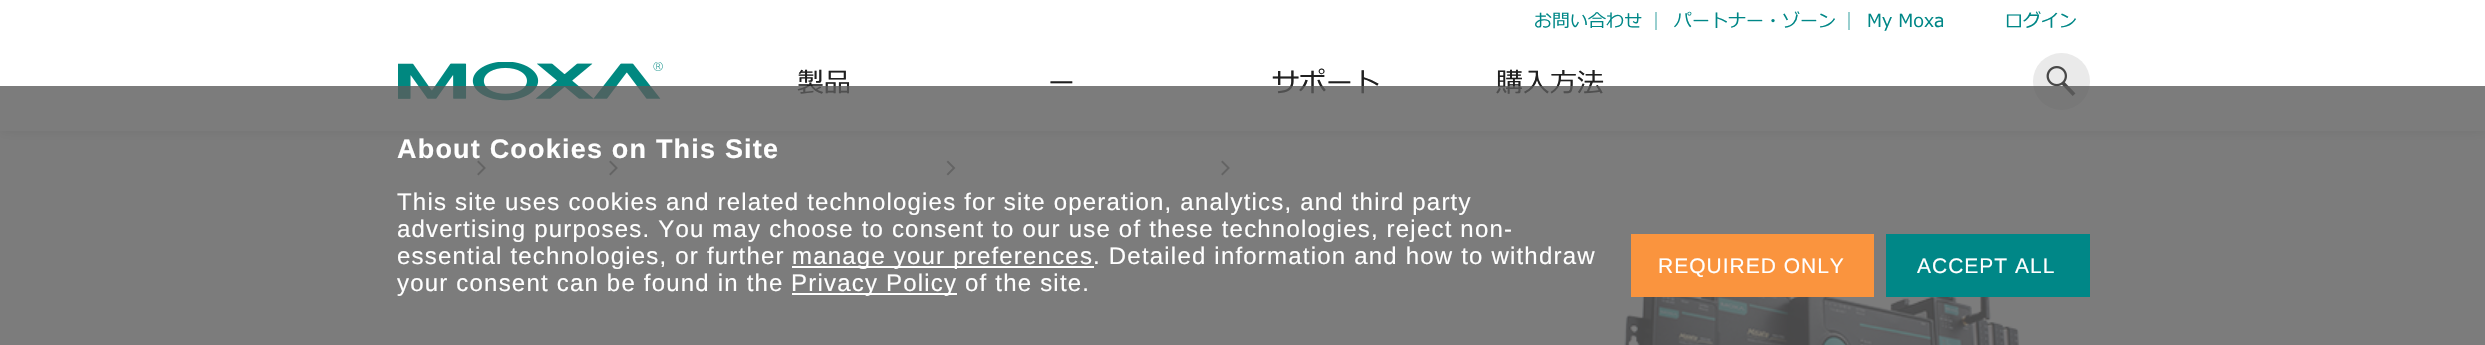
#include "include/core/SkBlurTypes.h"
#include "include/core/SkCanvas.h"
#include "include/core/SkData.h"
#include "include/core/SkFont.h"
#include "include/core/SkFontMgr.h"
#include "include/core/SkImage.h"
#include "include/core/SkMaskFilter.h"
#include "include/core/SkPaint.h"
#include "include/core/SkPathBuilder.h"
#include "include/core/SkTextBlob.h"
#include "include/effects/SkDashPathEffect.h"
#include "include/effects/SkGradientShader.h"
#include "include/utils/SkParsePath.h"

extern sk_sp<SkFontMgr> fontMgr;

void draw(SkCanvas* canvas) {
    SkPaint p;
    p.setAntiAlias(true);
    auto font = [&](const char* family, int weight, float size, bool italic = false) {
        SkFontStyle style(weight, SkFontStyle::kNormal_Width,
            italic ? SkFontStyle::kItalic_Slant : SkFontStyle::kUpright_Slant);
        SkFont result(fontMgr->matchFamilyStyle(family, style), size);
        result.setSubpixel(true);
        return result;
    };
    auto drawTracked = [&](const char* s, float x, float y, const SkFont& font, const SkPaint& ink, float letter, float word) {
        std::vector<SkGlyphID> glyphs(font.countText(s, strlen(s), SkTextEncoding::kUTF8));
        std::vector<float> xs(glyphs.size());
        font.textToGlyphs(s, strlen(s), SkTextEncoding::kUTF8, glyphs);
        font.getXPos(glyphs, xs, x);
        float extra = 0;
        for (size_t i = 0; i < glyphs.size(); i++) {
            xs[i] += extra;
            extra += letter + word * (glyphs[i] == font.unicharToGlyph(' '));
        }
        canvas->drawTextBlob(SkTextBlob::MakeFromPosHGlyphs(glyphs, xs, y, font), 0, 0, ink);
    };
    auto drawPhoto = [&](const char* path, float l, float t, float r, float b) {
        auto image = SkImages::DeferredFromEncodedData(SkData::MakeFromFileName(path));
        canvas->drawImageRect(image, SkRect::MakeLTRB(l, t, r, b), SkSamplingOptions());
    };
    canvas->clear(0xFFFFFFFF);
    canvas->save();
    canvas->clipPath(SkPathBuilder(SkPathFillType::kEvenOdd).moveTo(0, 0).lineTo(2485, 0).lineTo(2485, 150).lineTo(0, 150).close().moveTo(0, 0).lineTo(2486, 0).lineTo(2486, 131).lineTo(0, 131).close().detach(), true);
    p.setColor(0xFFCECECE);
    p.setMaskFilter(SkMaskFilter::MakeBlur(kNormal_SkBlurStyle, 6));
    canvas->drawRect(SkRect::MakeLTRB(0, 0, 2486, 131), p);
    p.setMaskFilter(nullptr);
    canvas->restore();
    p.setColor(0xFF99CFCF);
    canvas->drawRect(SkRect::MakeLTRB(1655, 12, 1657, 30), p);
    auto font1 = font("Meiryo", 400, 18);
    p.setColor(0xFF008787);
    canvas->drawString("お問い合わせ", 1534, 27, font1, p);
    p.setColor(0xFF99CFCF);
    canvas->drawRect(SkRect::MakeLTRB(1848, 12, 1850, 30), p);
    p.setColor(0xFF008787);
    {
        const struct { const char* s; float x, y; } items[] = {
            {"パートナー・ゾーン", 1674, 27},
            {"My Moxa", 1867, 27},
            {"ログイン", 2005, 27},
        };
        for (auto [s, x, y] : items) {
            canvas->drawString(s, x, y, font1, p);
        }
    }
    drawPhoto("media/1.png", 398, 62, 663, 101);
    auto font2 = font("Meiryo", 400, 27);
    p.setColor(0xFF202020);
    {
        const struct { const char* s; float x, y; } items[] = {
            {"製品", 797, 92},
            {"ー", 1048, 92},
            {"サポート", 1272, 92},
            {"購入方法", 1496, 92},
        };
        for (auto [s, x, y] : items) {
            canvas->drawString(s, x, y, font2, p);
        }
    }
    p.setColor(0xFFEAEAEA);
    canvas->drawCircle(2061.5f, 81.5f, 28.5f, p);
    drawPhoto("media/2.png", 2046, 66, 2076, 96);
    drawPhoto("media/3.png", 477, 160, 486, 176);
    drawPhoto("media/3.png", 609, 160, 618, 176);
    drawPhoto("media/4.png", 946, 160, 956, 176);
    drawPhoto("media/3.png", 1221, 160, 1230, 176);
    drawPhoto("media/5.png", 1624, 239, 2020, 345);
    p.setColor(0xCC5B5B5B);
    canvas->drawRect(SkRect::MakeLTRB(0, 86, 2485, 345), p);
    auto font3 = font("Liberation Sans", 700, 27);
    p.setColor(0xFFFFFFFF);
    drawTracked("About Cookies on This Site", 397, 158, font3, p, 1.2f, 0);
    auto font4 = font("Liberation Sans", 400, 24);
    {
        const struct { const char* s; float x, y; } items[] = {
            {"This site uses cookies and related technologies for site operation, analytics, and third party", 397, 210},
            {"advertising purposes. You may choose to consent to our use of these technologies, reject non-", 397, 237},
            {"essential technologies, or further", 397, 264},
        };
        for (auto [s, x, y] : items) {
            drawTracked(s, x, y, font4, p, 1.2f, 0);
        }
    }
    canvas->drawRect(SkRect::MakeLTRB(792, 266, 1094, 268), p);
    drawTracked("manage your preferences. Detailed information and how to withdraw", 792, 264, font4, p, 1.2f, 0);
    drawTracked("your consent can be found in the", 397, 291, font4, p, 1.2f, 0);
    canvas->drawRect(SkRect::MakeLTRB(792, 293, 957, 295), p);
    drawTracked("Privacy Policy of the site.", 791, 291, font4, p, 1.2f, 0);
    p.setColor(0xFFFA943E);
    canvas->drawRect(SkRect::MakeLTRB(1631, 234, 1874, 297), p);
    auto font5 = font("Liberation Sans", 400, 21);
    p.setColor(0xFFFFFFFF);
    drawTracked("REQUIRED ONLY", 1658, 273, font5, p, 1, 0);
    p.setColor(0xFF008787);
    canvas->drawRect(SkRect::MakeLTRB(1886, 234, 2090, 297), p);
    p.setColor(0xFFFFFFFF);
    drawTracked("ACCEPT ALL", 1917, 273, font5, p, 1, 0);
}
